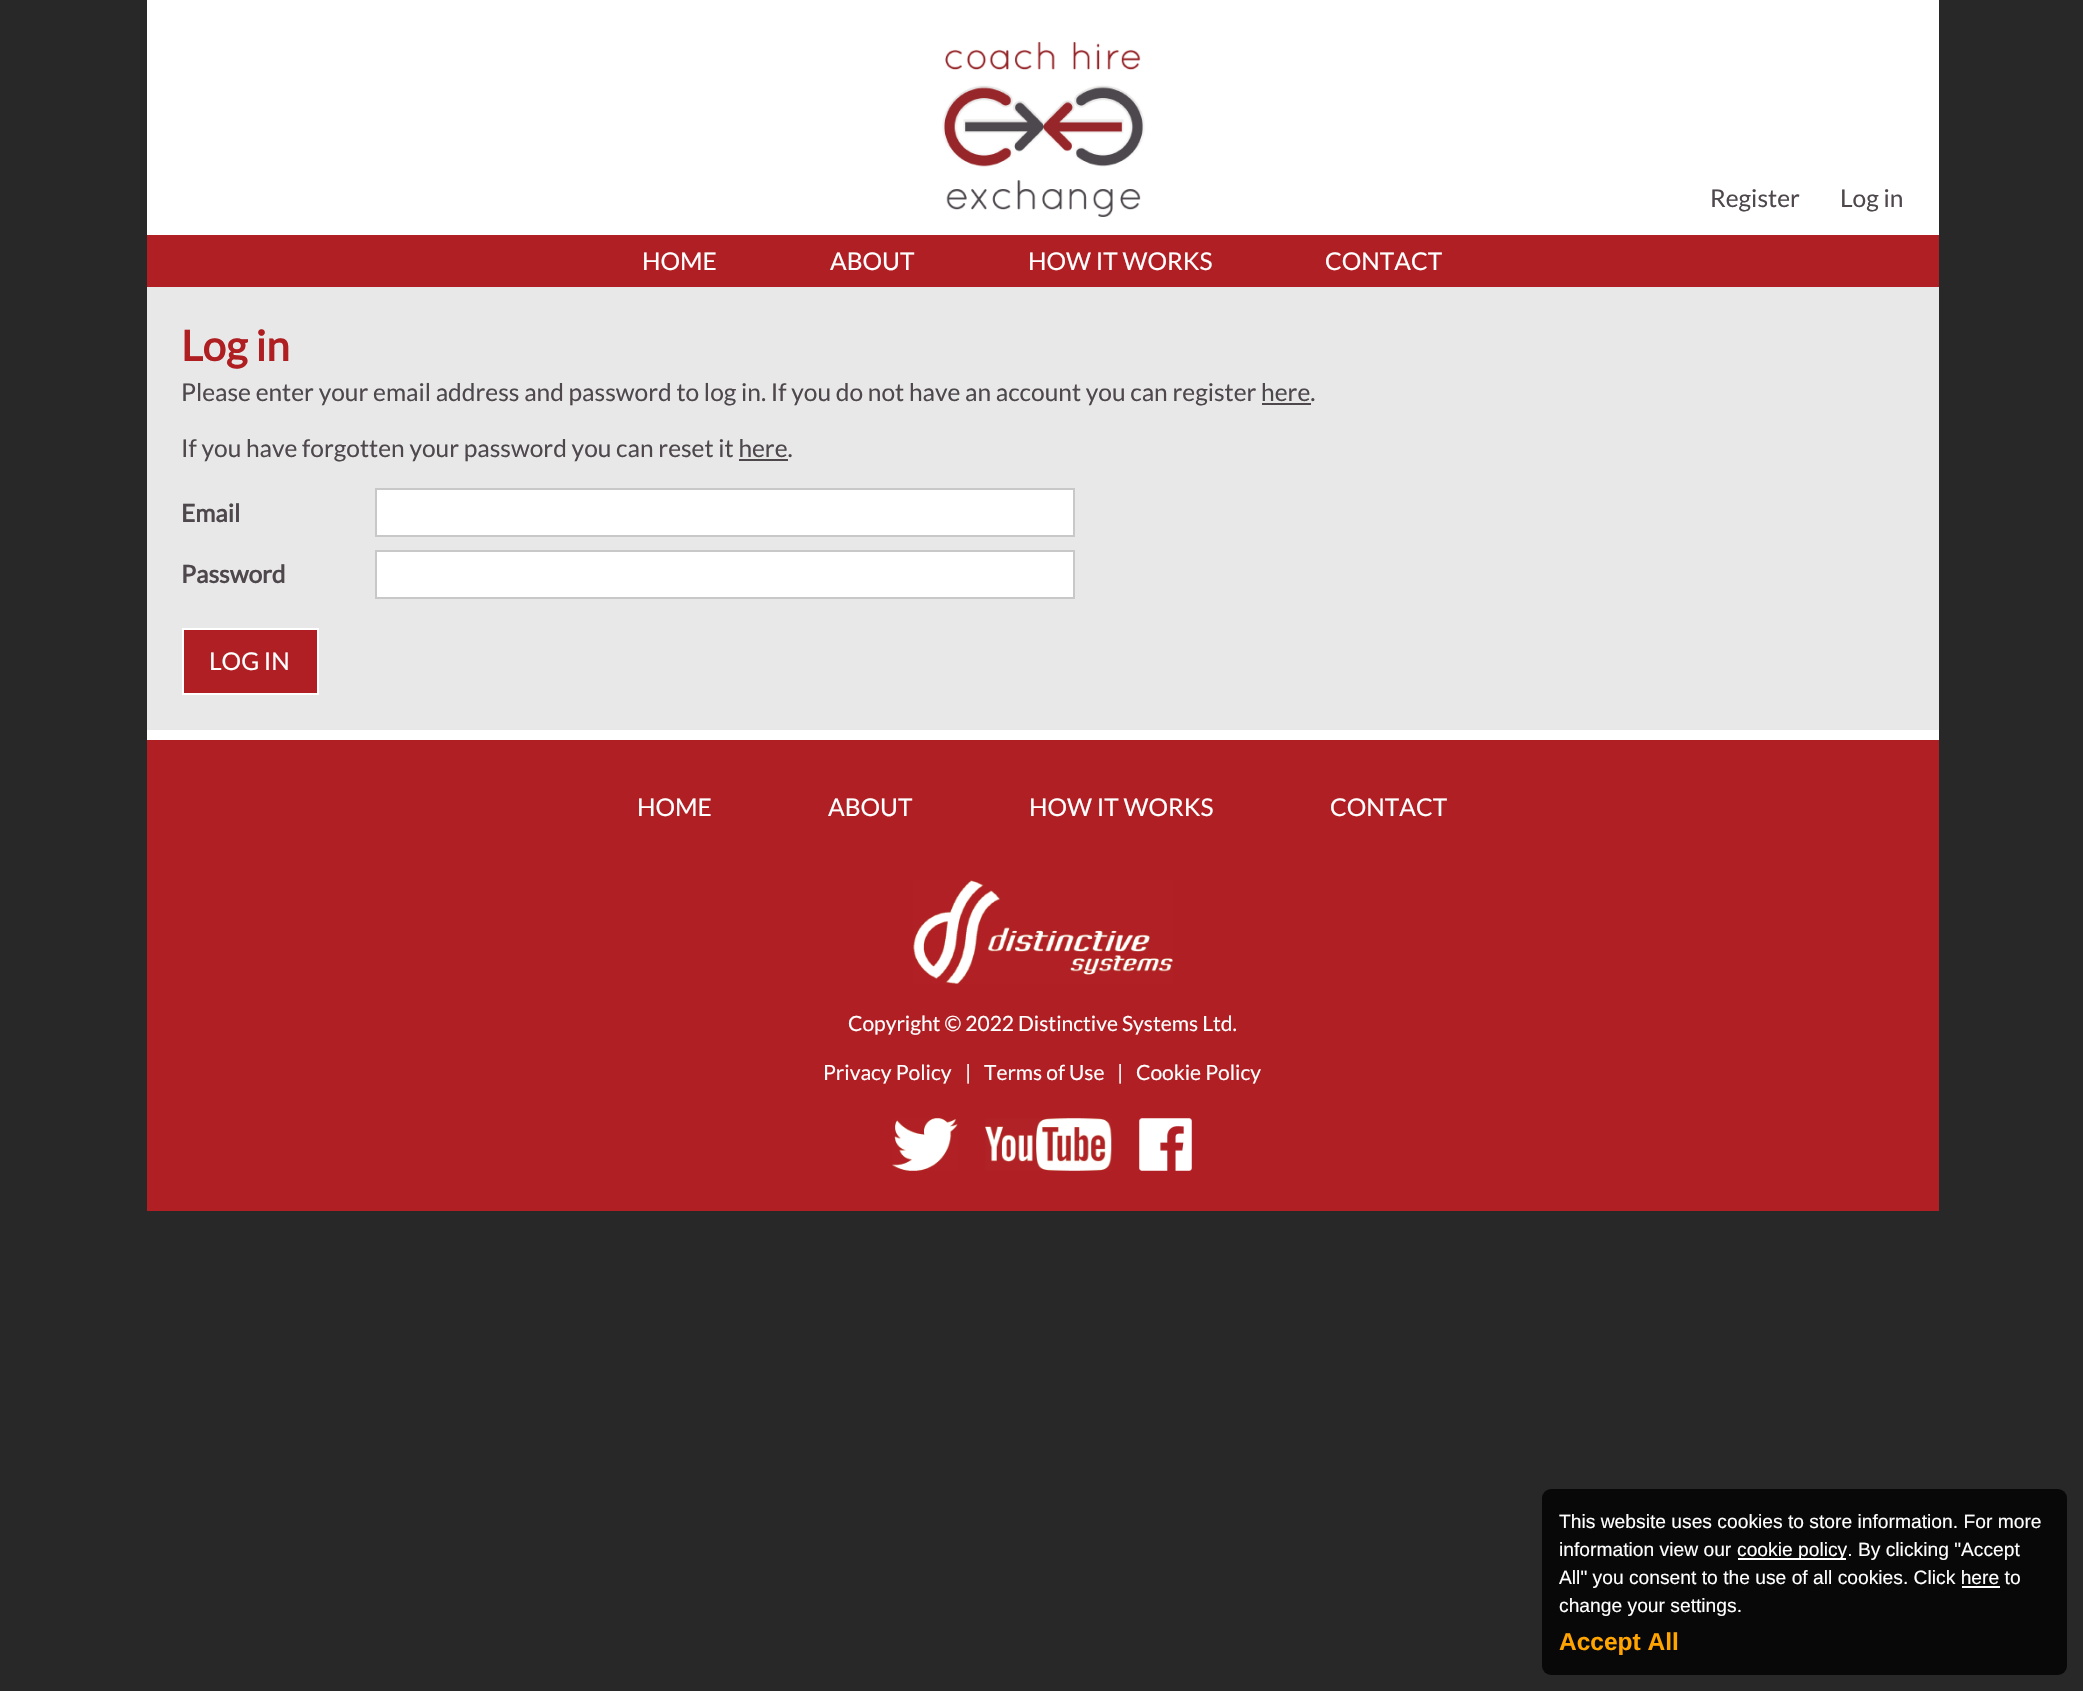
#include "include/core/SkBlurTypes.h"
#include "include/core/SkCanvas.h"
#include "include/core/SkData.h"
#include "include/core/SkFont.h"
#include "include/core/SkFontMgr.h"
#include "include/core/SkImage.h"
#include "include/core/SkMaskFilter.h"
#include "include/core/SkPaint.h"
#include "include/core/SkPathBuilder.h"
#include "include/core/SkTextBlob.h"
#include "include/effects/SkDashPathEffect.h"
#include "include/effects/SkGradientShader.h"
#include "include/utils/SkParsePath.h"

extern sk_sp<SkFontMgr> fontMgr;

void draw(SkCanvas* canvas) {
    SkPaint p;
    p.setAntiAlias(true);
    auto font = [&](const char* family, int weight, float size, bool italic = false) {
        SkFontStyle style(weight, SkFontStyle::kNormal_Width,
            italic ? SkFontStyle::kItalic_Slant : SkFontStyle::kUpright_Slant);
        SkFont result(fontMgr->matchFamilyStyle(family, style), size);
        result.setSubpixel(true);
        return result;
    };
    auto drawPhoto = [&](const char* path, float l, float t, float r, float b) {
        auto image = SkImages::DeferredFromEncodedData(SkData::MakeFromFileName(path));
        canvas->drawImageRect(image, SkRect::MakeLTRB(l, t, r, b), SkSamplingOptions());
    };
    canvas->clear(0xFF282828);
    p.setColor(0xFFFFFFFF);
    canvas->drawRect(SkRect::MakeLTRB(147, 0, 1939, 235), p);
    drawPhoto("media/1.png", 942, 42, 1145, 217);
    auto font1 = font("Lato", 400, 24.5f);
    p.setColor(0xFF4E484D);
    canvas->drawString("Register", 1710, 207, font1, p);
    canvas->drawString("Log in", 1840, 207, font1, p);
    p.setColor(0xFFB01F24);
    canvas->drawRect(SkRect::MakeLTRB(147, 235, 1939, 287), p);
    p.setColor(0xFFFFFFFF);
    {
        const struct { const char* s; float x, y; } items[] = {
            {"HOME", 642, 270},
            {"ABOUT", 830, 270},
            {"HOW IT WORKS", 1028, 270},
            {"CONTACT", 1325, 270},
        };
        for (auto [s, x, y] : items) {
            canvas->drawString(s, x, y, font1, p);
        }
    }
    p.setColor(0xFFE8E8E8);
    canvas->drawRect(SkRect::MakeLTRB(147, 287, 1939, 730), p);
    auto font2 = font("Lato", 700, 42);
    p.setColor(0xFFAF1E21);
    canvas->drawString("Log in", 181, 361, font2, p);
    p.setColor(0xFF4E484D);
    canvas->drawString("Please enter your email address and password to log in. If you do not have an account you can register here.", 181, 401, font1, p);
    canvas->drawRect(SkRect::MakeLTRB(1262, 403, 1311, 405), p);
    canvas->drawString("If you have forgotten your password you can reset it here.", 181, 457, font1, p);
    canvas->drawRect(SkRect::MakeLTRB(739, 459, 788, 461), p);
    auto font3 = font("Lato", 700, 24.5f);
    canvas->drawString("Email", 181, 522, font3, p);
    p.setColor(0xFFFFFFFF);
    canvas->drawRect(SkRect::MakeLTRB(376, 489, 1074, 536), p);
    p.setStyle(SkPaint::kStroke_Style);
    p.setStrokeWidth(2);
    p.setColor(0xFFC8C8C8);
    canvas->drawRect(SkRect::MakeLTRB(376, 489, 1074, 536), p);
    p.setStyle(SkPaint::kFill_Style);
    p.setColor(0xFF4E484D);
    canvas->drawString("Password", 181, 583, font3, p);
    p.setColor(0xFFFFFFFF);
    canvas->drawRect(SkRect::MakeLTRB(376, 551, 1074, 598), p);
    p.setStyle(SkPaint::kStroke_Style);
    p.setColor(0xFFC8C8C8);
    canvas->drawRect(SkRect::MakeLTRB(376, 551, 1074, 598), p);
    p.setStyle(SkPaint::kFill_Style);
    p.setColor(0xFFB01F24);
    canvas->drawRect(SkRect::MakeLTRB(183, 629, 318, 694), p);
    p.setStyle(SkPaint::kStroke_Style);
    p.setColor(0xFFFFFFFF);
    canvas->drawRect(SkRect::MakeLTRB(183, 629, 318, 694), p);
    p.setStyle(SkPaint::kFill_Style);
    canvas->drawString("LOG IN", 209, 670, font1, p);
    p.setColor(0xFFB01F24);
    canvas->drawRect(SkRect::MakeLTRB(147, 740, 1939, 1211), p);
    p.setColor(0xFFFFFFFF);
    canvas->drawRect(SkRect::MakeLTRB(147, 730, 1939, 740), p);
    {
        const struct { const char* s; float x, y; } items[] = {
            {"HOME", 637, 816},
            {"ABOUT", 828, 816},
            {"HOW IT WORKS", 1029, 816},
            {"CONTACT", 1330, 816},
        };
        for (auto [s, x, y] : items) {
            canvas->drawString(s, x, y, font1, p);
        }
    }
    drawPhoto("media/2.png", 913, 880, 1173, 984);
    auto font4 = font("Lato", 400, 21);
    {
        const struct { const char* s; float x, y; } items[] = {
            {"Copyright © 2022 Distinctive Systems Ltd.", 848, 1031},
            {"Privacy Policy", 823, 1080},
            {"|", 965, 1080},
            {"Terms of Use", 984, 1080},
            {"|", 1117, 1080},
            {"Cookie Policy", 1136, 1080},
        };
        for (auto [s, x, y] : items) {
            canvas->drawString(s, x, y, font4, p);
        }
    }
    drawPhoto("media/3.png", 892, 1118, 958, 1171);
    drawPhoto("media/4.png", 985, 1118, 1112, 1171);
    drawPhoto("media/5.png", 1139, 1118, 1192, 1171);
    p.setColor(0xFF080808);
    canvas->drawRoundRect(SkRect::MakeLTRB(1542, 1489, 2067, 1675), 9, 9, p);
    auto font5 = font("Liberation Sans", 400, 19.25f);
    p.setColor(0xFFFFFFFF);
    canvas->drawString("This website uses cookies to store information. For more", 1559, 1528, font5, p);
    canvas->drawString("information view our", 1559, 1556, font5, p);
    canvas->drawRect(SkRect::MakeLTRB(1738, 1558, 1846, 1560), p);
    canvas->drawString("cookie policy. By clicking \"Accept", 1737, 1556, font5, p);
    canvas->drawString("All\" you consent to the use of all cookies. Click here to", 1559, 1584, font5, p);
    canvas->drawRect(SkRect::MakeLTRB(1962, 1586, 2000, 1588), p);
    canvas->drawString("change your settings.", 1559, 1612, font5, p);
    auto font6 = font("Liberation Sans", 700, 24.5f);
    p.setColor(0xFFFFA400);
    canvas->drawString("Accept All", 1559, 1650, font6, p);
}
